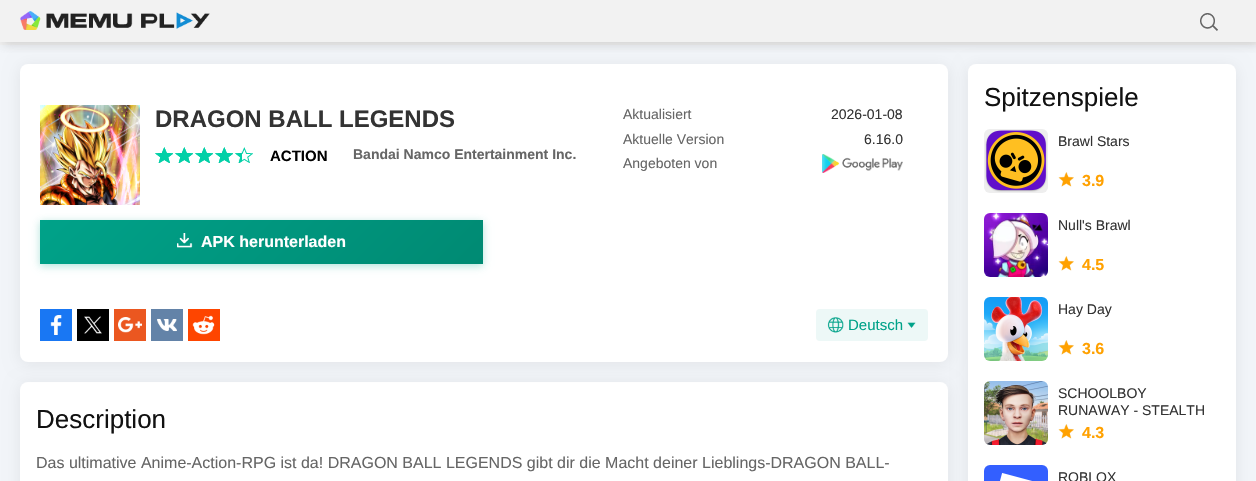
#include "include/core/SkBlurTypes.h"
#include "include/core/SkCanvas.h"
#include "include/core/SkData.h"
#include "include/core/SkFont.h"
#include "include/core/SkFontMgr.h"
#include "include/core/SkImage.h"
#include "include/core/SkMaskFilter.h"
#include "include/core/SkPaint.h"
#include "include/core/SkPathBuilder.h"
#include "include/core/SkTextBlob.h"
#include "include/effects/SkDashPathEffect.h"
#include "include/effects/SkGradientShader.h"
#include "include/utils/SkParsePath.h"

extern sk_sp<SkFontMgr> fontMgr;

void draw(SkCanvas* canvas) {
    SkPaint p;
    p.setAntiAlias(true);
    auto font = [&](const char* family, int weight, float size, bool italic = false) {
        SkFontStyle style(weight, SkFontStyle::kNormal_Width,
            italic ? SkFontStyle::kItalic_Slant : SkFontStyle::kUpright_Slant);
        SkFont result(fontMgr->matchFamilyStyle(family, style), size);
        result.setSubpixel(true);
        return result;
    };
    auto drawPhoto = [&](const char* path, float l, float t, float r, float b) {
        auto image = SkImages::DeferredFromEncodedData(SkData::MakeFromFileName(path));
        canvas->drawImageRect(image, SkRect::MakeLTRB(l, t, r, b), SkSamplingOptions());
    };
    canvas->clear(0xFFF2F5F9);
    p.setColor(0xFFF2F2F2);
    canvas->drawRect(SkRect::MakeLTRB(0, 0, 1256, 45), p);
    canvas->save();
    canvas->clipRect(SkRect::MakeLTRB(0, 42, 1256, 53));
    p.setColor(0x52888888);
    p.setMaskFilter(SkMaskFilter::MakeBlur(kNormal_SkBlurStyle, 5));
    canvas->drawRect(SkRect::MakeLTRB(3, 3, 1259, 45), p);
    p.setMaskFilter(nullptr);
    canvas->restore();
    drawPhoto("media/1.png", 20, 11, 210, 30);
    drawPhoto("media/2.png", 1200, 13, 1218, 31);
    p.setColor(0x12000000);
    p.setMaskFilter(SkMaskFilter::MakeBlur(kNormal_SkBlurStyle, 8));
    canvas->drawRoundRect(SkRect::MakeLTRB(20, 384, 948, 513), 8, 8, p);
    p.setMaskFilter(nullptr);
    p.setColor(0xFFFFFFFF);
    canvas->drawRoundRect(SkRect::MakeLTRB(20, 382, 948, 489), 8, 8, p);
    p.setColor(0x12000000);
    p.setMaskFilter(SkMaskFilter::MakeBlur(kNormal_SkBlurStyle, 8));
    canvas->drawRoundRect(SkRect::MakeLTRB(968, 66, 1236, 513), 8, 8, p);
    p.setMaskFilter(nullptr);
    p.setColor(0xFFFFFFFF);
    canvas->drawRoundRect(SkRect::MakeLTRB(968, 64, 1236, 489), 8, 8, p);
    p.setColor(0x12000000);
    p.setMaskFilter(SkMaskFilter::MakeBlur(kNormal_SkBlurStyle, 8));
    canvas->drawRoundRect(SkRect::MakeLTRB(20, 66, 948, 364), 8, 8, p);
    p.setMaskFilter(nullptr);
    p.setColor(0xFFFFFFFF);
    canvas->drawRoundRect(SkRect::MakeLTRB(20, 64, 948, 362), 8, 8, p);
    drawPhoto("media/3.png", 40, 105, 140, 205);
    auto font1 = font("Liberation Sans", 700, 24);
    p.setColor(0xFF333333);
    canvas->drawString("DRAGON BALL LEGENDS", 155, 127, font1, p);
    drawPhoto("media/4.png", 155, 147, 173, 163);
    drawPhoto("media/5.png", 155, 147, 173, 163);
    drawPhoto("media/4.png", 175, 147, 193, 163);
    drawPhoto("media/5.png", 175, 147, 193, 163);
    drawPhoto("media/4.png", 195, 147, 213, 163);
    drawPhoto("media/5.png", 195, 147, 213, 163);
    drawPhoto("media/4.png", 215, 147, 233, 163);
    drawPhoto("media/5.png", 215, 147, 233, 163);
    drawPhoto("media/4.png", 235, 147, 253, 163);
    drawPhoto("media/6.png", 235, 151, 242, 163);
    auto font2 = font("Liberation Sans", 700, 15);
    p.setColor(0xFF000000);
    canvas->drawString("ACTION", 270, 161, font2, p);
    auto font3 = font("Liberation Sans", 700, 14);
    p.setColor(0xFF666666);
    canvas->drawString("Bandai Namco Entertainment Inc.", 353, 159, font3, p);
    auto font4 = font("Liberation Sans", 400, 14);
    canvas->drawString("Aktualisiert", 623, 119, font4, p);
    p.setColor(0xFF333333);
    canvas->drawString("2026-01-08", 831, 119, font4, p);
    p.setColor(0xFF666666);
    canvas->drawString("Aktuelle Version", 623, 144, font4, p);
    p.setColor(0xFF333333);
    canvas->drawString("6.16.0", 864, 144, font4, p);
    p.setColor(0xFF666666);
    canvas->drawString("Angeboten von", 623, 168, font4, p);
    drawPhoto("media/7.png", 822, 154, 903, 173);
    p.setColor(0x4D00A289);
    p.setMaskFilter(SkMaskFilter::MakeBlur(kNormal_SkBlurStyle, 4));
    canvas->drawRect(SkRect::MakeLTRB(40, 222, 483, 266), p);
    p.setMaskFilter(nullptr);
    {
        const SkColor colors[] = {0xFF00A289, 0xFF008A73};
        const float stops[] = {0, 1};
        const SkPoint ends[] = {{140, 120}, {383, 364}};
        p.setShader(SkGradientShader::MakeLinear(ends, colors, stops, 2, SkTileMode::kClamp));
        p.setAlpha(255);
    }
    canvas->drawRect(SkRect::MakeLTRB(40, 220, 483, 264), p);
    drawPhoto("media/8.png", 177, 233, 193, 248);
    auto font5 = font("Liberation Sans", 700, 16);
    p.setShader(nullptr);
    p.setColor(0xFFFFFFFF);
    canvas->drawString("APK herunterladen", 201, 247, font5, p);
    drawPhoto("media/9.png", 40, 309, 72, 341);
    drawPhoto("media/10.png", 77, 309, 109, 341);
    drawPhoto("media/11.png", 114, 309, 146, 341);
    drawPhoto("media/12.png", 151, 309, 183, 341);
    drawPhoto("media/13.png", 188, 309, 220, 341);
    p.setColor(0xFFEDF8F7);
    canvas->drawRoundRect(SkRect::MakeLTRB(816, 309, 928, 341), 4, 4, p);
    drawPhoto("media/14.png", 827, 317, 844, 333);
    auto font6 = font("Liberation Sans", 400, 15);
    p.setColor(0xFF00A289);
    canvas->drawString("Deutsch", 848, 330, font6, p);
    drawPhoto("media/15.png", 907, 322, 916, 328);
    auto font7 = font("Liberation Sans", 400, 26);
    p.setColor(0xFF111111);
    canvas->drawString("Description", 36, 428, font7, p);
    auto font8 = font("Liberation Sans", 400, 16);
    p.setColor(0xFF666666);
    canvas->drawString("Das ultimative Anime-Action-RPG ist da! DRAGON BALL LEGENDS gibt dir die Macht deiner Lieblings-DRAGON BALL-", 36, 468, font8, p);
    p.setColor(0xFF111111);
    canvas->drawString("Spitzenspiele", 984, 106, font7, p);
    p.setColor(0xFFEEEEEE);
    canvas->drawRoundRect(SkRect::MakeLTRB(984, 129, 1048, 193), 6, 6, p);
    drawPhoto("media/16.png", 985, 130, 1047, 192);
    p.setColor(0xFF333333);
    canvas->drawString("Brawl Stars", 1058, 146, font4, p);
    drawPhoto("media/17.png", 1058, 172, 1074, 187);
    p.setColor(0xFFFFA100);
    canvas->drawString("3.9", 1082, 186, font5, p);
    drawPhoto("media/18.png", 984, 213, 1048, 277);
    p.setColor(0xFF333333);
    canvas->drawString("Null's Brawl", 1058, 230, font4, p);
    drawPhoto("media/17.png", 1058, 256, 1074, 271);
    p.setColor(0xFFFFA100);
    canvas->drawString("4.5", 1082, 270, font5, p);
    drawPhoto("media/19.png", 984, 297, 1048, 361);
    p.setColor(0xFF333333);
    canvas->drawString("Hay Day", 1058, 314, font4, p);
    drawPhoto("media/17.png", 1058, 340, 1074, 355);
    p.setColor(0xFFFFA100);
    canvas->drawString("3.6", 1082, 354, font5, p);
    drawPhoto("media/20.png", 984, 381, 1048, 445);
    p.setColor(0xFF333333);
    canvas->drawString("SCHOOLBOY", 1058, 398, font4, p);
    canvas->drawString("RUNAWAY - STEALTH", 1058, 415, font4, p);
    drawPhoto("media/17.png", 1058, 424, 1074, 439);
    p.setColor(0xFFFFA100);
    canvas->drawString("4.3", 1082, 438, font5, p);
    drawPhoto("media/21.png", 984, 465, 1048, 481);
    p.setColor(0xFF333333);
    canvas->drawString("ROBLOX", 1058, 482, font4, p);
}
